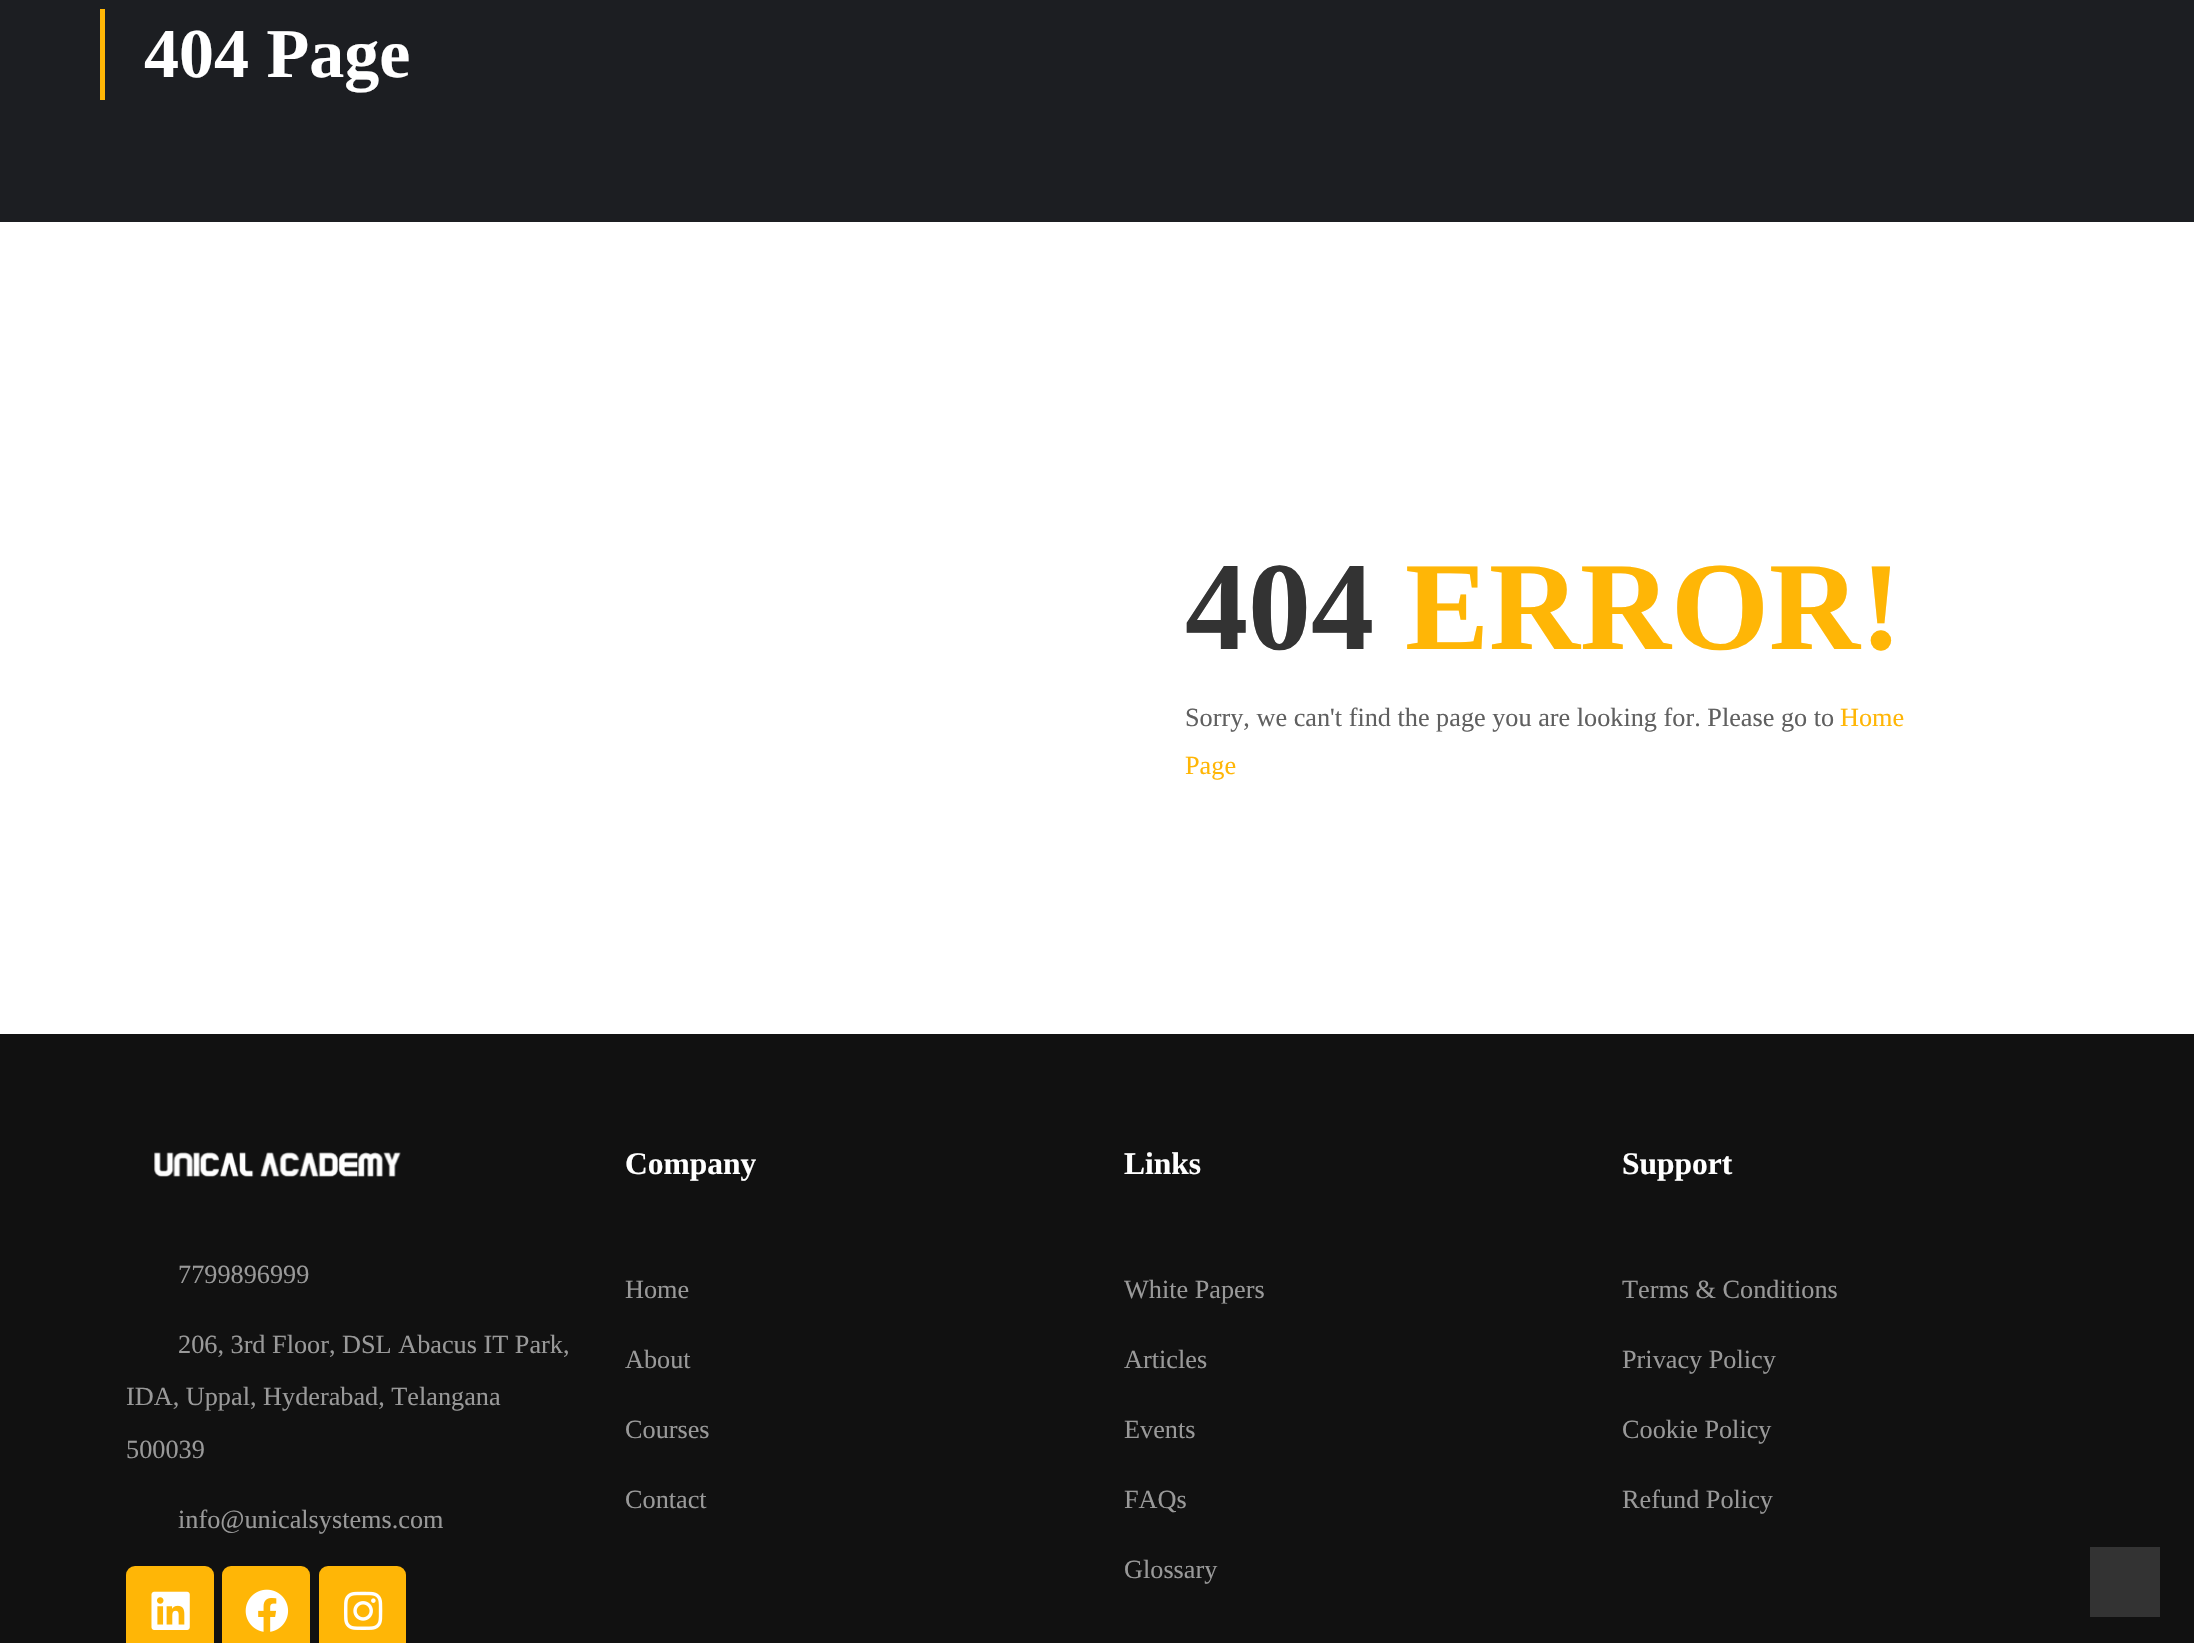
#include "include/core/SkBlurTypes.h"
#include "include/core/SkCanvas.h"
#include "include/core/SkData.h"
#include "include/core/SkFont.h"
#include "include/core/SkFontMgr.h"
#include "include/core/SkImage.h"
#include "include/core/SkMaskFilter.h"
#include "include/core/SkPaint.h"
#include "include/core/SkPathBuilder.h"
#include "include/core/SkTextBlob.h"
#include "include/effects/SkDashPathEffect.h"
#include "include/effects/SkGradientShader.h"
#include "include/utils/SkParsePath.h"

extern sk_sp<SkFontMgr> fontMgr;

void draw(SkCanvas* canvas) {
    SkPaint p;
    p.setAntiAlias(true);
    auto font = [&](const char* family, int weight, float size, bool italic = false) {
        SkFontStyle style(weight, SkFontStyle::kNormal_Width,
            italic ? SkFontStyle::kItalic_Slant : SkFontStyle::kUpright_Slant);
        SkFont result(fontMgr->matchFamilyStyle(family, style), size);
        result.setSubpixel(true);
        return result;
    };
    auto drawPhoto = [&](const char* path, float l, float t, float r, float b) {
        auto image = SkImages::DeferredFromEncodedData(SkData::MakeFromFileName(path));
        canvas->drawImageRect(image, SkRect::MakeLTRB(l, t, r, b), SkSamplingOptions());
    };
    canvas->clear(0xFFFFFFFF);
    p.setColor(0xFF1C1E22);
    canvas->drawRect(SkRect::MakeLTRB(0, 0, 2194, 222), p);
    p.setColor(0xFFFFB606);
    canvas->drawRect(SkRect::MakeLTRB(100, 9, 105, 100), p);
    auto font1 = font("Liberation Serif", 700, 70);
    p.setColor(0xFFFFFFFF);
    canvas->drawString("404 Page", 144, 77, font1, p);
    auto font2 = font("Liberation Serif", 700, 126);
    p.setColor(0xFF333333);
    canvas->drawString("404", 1185, 649, font2, p);
    p.setColor(0xFFFFB606);
    canvas->drawString("ERROR!", 1405, 649, font2, p);
    auto font3 = font("Liberation Serif", 400, 26.25f);
    p.setColor(0xFF606060);
    canvas->drawString("Sorry, we can't find the page you are looking for. Please go to", 1185, 726, font3, p);
    p.setColor(0xFFFFB606);
    canvas->drawString("Home", 1840, 726, font3, p);
    canvas->drawString("Page", 1185, 774, font3, p);
    p.setColor(0xFF111111);
    canvas->drawRect(SkRect::MakeLTRB(0, 1034, 2194, 1643), p);
    drawPhoto("media/1.png", 154, 1152, 401, 1177);
    p.setColor(0xFF999999);
    {
        const struct { const char* s; float x, y; } items[] = {
            {"7799896999", 178, 1283},
            {"206, 3rd Floor, DSL Abacus IT Park,", 178, 1353},
            {"IDA, Uppal, Hyderabad, Telangana", 126, 1405},
            {"500039", 126, 1458},
            {"info@unicalsystems.com", 178, 1528},
        };
        for (auto [s, x, y] : items) {
            canvas->drawString(s, x, y, font3, p);
        }
    }
    p.setColor(0xFFFFB606);
    canvas->drawRoundRect(SkRect::MakeLTRB(126, 1566, 214, 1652), 9, 9, p);
    drawPhoto("media/2.png", 151, 1591, 190, 1630);
    canvas->drawRoundRect(SkRect::MakeLTRB(222, 1566, 310, 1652), 9, 9, p);
    drawPhoto("media/3.png", 245, 1589, 289, 1632);
    canvas->drawRoundRect(SkRect::MakeLTRB(319, 1566, 406, 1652), 9, 9, p);
    drawPhoto("media/4.png", 344, 1591, 383, 1630);
    auto font4 = font("Liberation Serif", 700, 31.5f);
    p.setColor(0xFFFFFFFF);
    canvas->drawString("Company", 625, 1174, font4, p);
    p.setColor(0xFF999999);
    {
        const struct { const char* s; float x, y; } items[] = {
            {"Home", 625, 1298},
            {"About", 625, 1368},
            {"Courses", 625, 1438},
            {"Contact", 625, 1508},
        };
        for (auto [s, x, y] : items) {
            canvas->drawString(s, x, y, font3, p);
        }
    }
    p.setColor(0xFFFFFFFF);
    canvas->drawString("Links", 1124, 1174, font4, p);
    p.setColor(0xFF999999);
    {
        const struct { const char* s; float x, y; } items[] = {
            {"White Papers", 1124, 1298},
            {"Articles", 1124, 1368},
            {"Events", 1124, 1438},
            {"FAQs", 1124, 1508},
            {"Glossary", 1124, 1578},
        };
        for (auto [s, x, y] : items) {
            canvas->drawString(s, x, y, font3, p);
        }
    }
    p.setColor(0xFFFFFFFF);
    canvas->drawString("Support", 1622, 1174, font4, p);
    p.setColor(0xFF999999);
    {
        const struct { const char* s; float x, y; } items[] = {
            {"Terms & Conditions", 1622, 1298},
            {"Privacy Policy", 1622, 1368},
            {"Cookie Policy", 1622, 1438},
            {"Refund Policy", 1622, 1508},
        };
        for (auto [s, x, y] : items) {
            canvas->drawString(s, x, y, font3, p);
        }
    }
    p.setColor(0xFF333333);
    canvas->drawRect(SkRect::MakeLTRB(2090, 1547, 2160, 1617), p);
}
